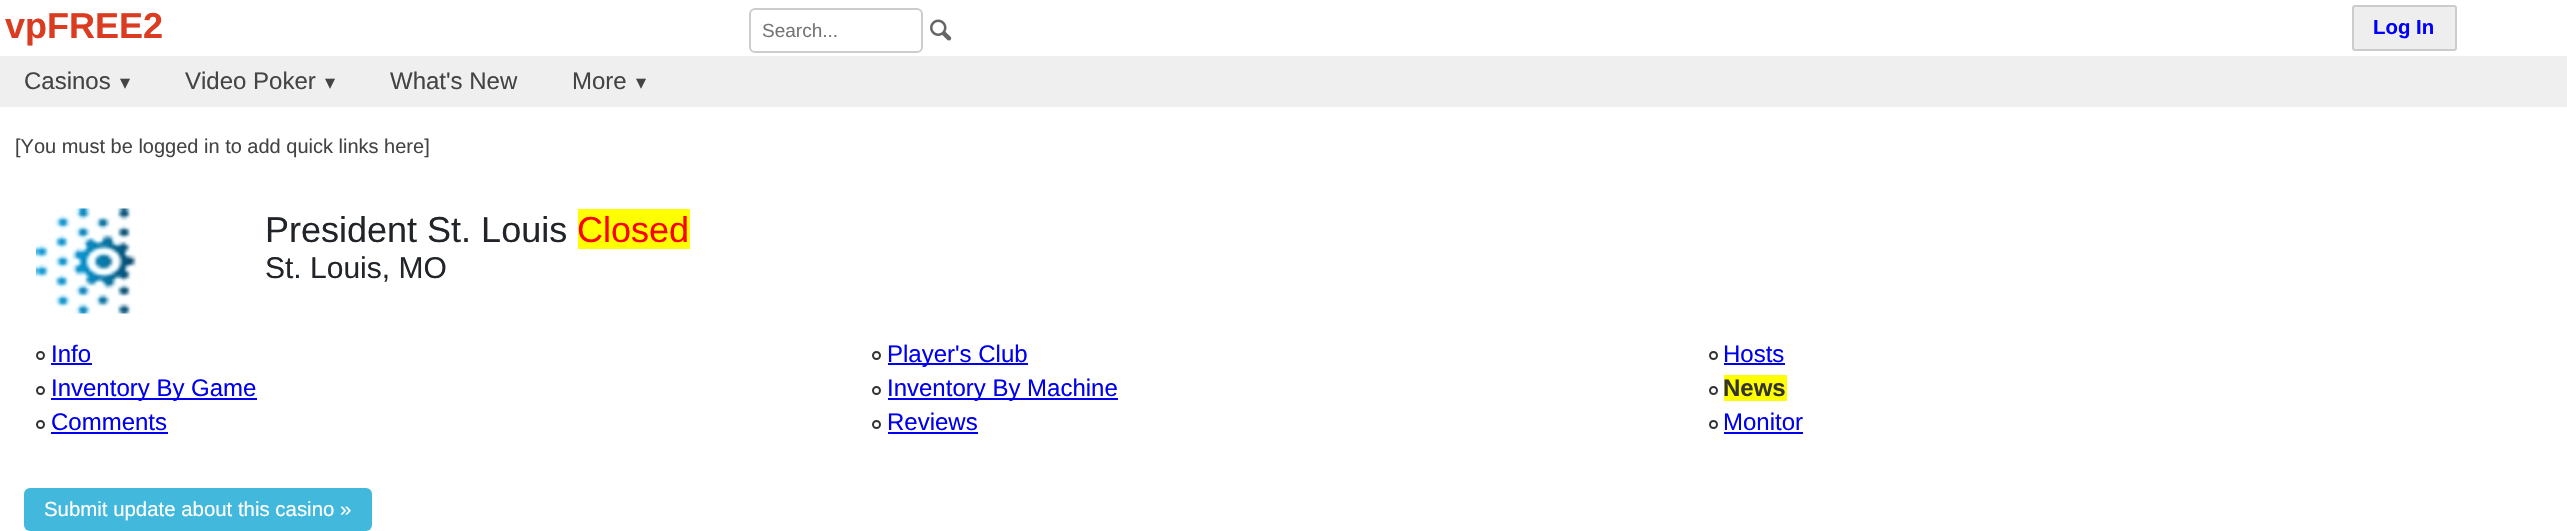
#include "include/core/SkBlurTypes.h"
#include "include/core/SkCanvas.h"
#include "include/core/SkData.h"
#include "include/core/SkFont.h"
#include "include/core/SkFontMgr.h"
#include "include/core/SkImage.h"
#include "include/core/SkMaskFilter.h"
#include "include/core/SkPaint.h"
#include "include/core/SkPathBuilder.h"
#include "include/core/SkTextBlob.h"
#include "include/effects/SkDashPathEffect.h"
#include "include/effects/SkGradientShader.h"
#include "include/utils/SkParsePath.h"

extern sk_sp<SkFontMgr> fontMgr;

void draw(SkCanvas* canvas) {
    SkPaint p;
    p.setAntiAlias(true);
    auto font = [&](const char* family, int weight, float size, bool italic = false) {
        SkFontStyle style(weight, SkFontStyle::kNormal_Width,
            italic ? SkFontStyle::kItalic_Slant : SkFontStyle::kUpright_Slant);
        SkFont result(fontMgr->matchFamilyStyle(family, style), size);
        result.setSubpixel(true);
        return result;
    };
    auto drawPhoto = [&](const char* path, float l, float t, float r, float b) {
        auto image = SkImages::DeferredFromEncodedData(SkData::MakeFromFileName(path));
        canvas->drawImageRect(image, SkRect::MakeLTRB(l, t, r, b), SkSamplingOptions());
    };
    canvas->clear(0xFFFFFFFF);
    auto font1 = font("Liberation Sans", 700, 36);
    p.setColor(0xFFDB3C21);
    canvas->drawString("vpFREE2", 5, 38, font1, p);
    p.setStyle(SkPaint::kStroke_Style);
    p.setStrokeWidth(2);
    p.setColor(0xFFCCCCCC);
    canvas->drawRoundRect(SkRect::MakeLTRB(750, 9, 922, 52), 5, 5, p);
    auto font2 = font("Liberation Sans", 400, 19);
    p.setStyle(SkPaint::kFill_Style);
    p.setColor(0xFF757575);
    canvas->drawString("Search...", 762, 37, font2, p);
    drawPhoto("media/1.png", 930, 19, 952, 41);
    p.setColor(0xFFEEEEEE);
    canvas->drawRoundRect(SkRect::MakeLTRB(2353, 6, 2456, 50), 2, 2, p);
    p.setStyle(SkPaint::kStroke_Style);
    p.setColor(0xFFCCCCCC);
    canvas->drawRoundRect(SkRect::MakeLTRB(2353, 6, 2456, 50), 2, 2, p);
    auto font3 = font("Liberation Sans", 700, 20.4f);
    p.setStyle(SkPaint::kFill_Style);
    p.setColor(0xFF0000FF);
    canvas->drawString("Log In", 2373, 34, font3, p);
    p.setColor(0xFFEFEFEF);
    canvas->drawRect(SkRect::MakeLTRB(0, 56, 2567, 107), p);
    auto font4 = font("Liberation Sans", 400, 24);
    p.setColor(0xFF444444);
    canvas->drawString("Casinos", 24, 89, font4, p);
    auto font5 = font("DejaVu Sans", 400, 20);
    canvas->drawString("▾", 120, 89, font5, p);
    canvas->drawString("Video Poker", 185, 89, font4, p);
    canvas->drawString("▾", 325, 89, font5, p);
    canvas->drawString("What's New", 390, 89, font4, p);
    canvas->drawString("More", 572, 89, font4, p);
    canvas->drawString("▾", 636, 89, font5, p);
    auto font6 = font("Liberation Sans", 400, 20);
    canvas->drawString("[You must be logged in to add quick links here]", 15, 153, font6, p);
    drawPhoto("media/2.png", 36, 208, 137, 314);
    auto font7 = font("Liberation Sans", 400, 36);
    p.setColor(0xFF212529);
    canvas->drawString("President St. Louis", 265, 242, font7, p);
    p.setColor(0xFFFFFF00);
    canvas->drawRect(SkRect::MakeLTRB(578, 209, 690, 249), p);
    p.setColor(0xFFFF0000);
    canvas->drawString("Closed", 577, 242, font7, p);
    auto font8 = font("Liberation Sans", 400, 30);
    p.setColor(0xFF212529);
    canvas->drawString("St. Louis, MO", 265, 278, font8, p);
    p.setStyle(SkPaint::kStroke_Style);
    p.setColor(0xFF333333);
    canvas->drawCircle(40.5f, 355.5f, 3.5f, p);
    p.setStyle(SkPaint::kFill_Style);
    p.setColor(0xFF0000EE);
    canvas->drawString("Info", 51, 362, font4, p);
    canvas->drawRect(SkRect::MakeLTRB(51, 363, 92, 365), p);
    p.setStyle(SkPaint::kStroke_Style);
    p.setColor(0xFF333333);
    canvas->drawCircle(876.5f, 355.5f, 3.5f, p);
    p.setStyle(SkPaint::kFill_Style);
    p.setColor(0xFF0000EE);
    canvas->drawRect(SkRect::MakeLTRB(888, 363, 1028, 365), p);
    canvas->drawString("Player's Club", 887, 362, font4, p);
    p.setStyle(SkPaint::kStroke_Style);
    p.setColor(0xFF333333);
    canvas->drawCircle(1713.5f, 355.5f, 3.5f, p);
    p.setStyle(SkPaint::kFill_Style);
    p.setColor(0xFF0000EE);
    canvas->drawString("Hosts", 1723, 362, font4, p);
    canvas->drawRect(SkRect::MakeLTRB(1724, 363, 1785, 365), p);
    p.setStyle(SkPaint::kStroke_Style);
    p.setColor(0xFF333333);
    canvas->drawCircle(40.5f, 390.5f, 3.5f, p);
    p.setStyle(SkPaint::kFill_Style);
    p.setColor(0xFF0000EE);
    canvas->drawRect(SkRect::MakeLTRB(51, 398, 257, 400), p);
    canvas->drawString("Inventory By Game", 51, 396, font4, p);
    p.setStyle(SkPaint::kStroke_Style);
    p.setColor(0xFF333333);
    canvas->drawCircle(876.5f, 390.5f, 3.5f, p);
    p.setStyle(SkPaint::kFill_Style);
    p.setColor(0xFF0000EE);
    canvas->drawRect(SkRect::MakeLTRB(888, 398, 1118, 400), p);
    canvas->drawString("Inventory By Machine", 887, 396, font4, p);
    p.setStyle(SkPaint::kStroke_Style);
    p.setColor(0xFF333333);
    canvas->drawCircle(1713.5f, 390.5f, 3.5f, p);
    p.setStyle(SkPaint::kFill_Style);
    p.setColor(0xFFFFFF00);
    canvas->drawRect(SkRect::MakeLTRB(1724, 375, 1787, 401), p);
    auto font9 = font("Liberation Sans", 700, 24);
    p.setColor(0xFF333333);
    canvas->drawString("News", 1723, 396, font9, p);
    p.setStyle(SkPaint::kStroke_Style);
    canvas->drawCircle(40.5f, 424.5f, 3.5f, p);
    p.setStyle(SkPaint::kFill_Style);
    p.setColor(0xFF0000EE);
    canvas->drawString("Comments", 51, 430, font4, p);
    canvas->drawRect(SkRect::MakeLTRB(51, 432, 168, 434), p);
    p.setStyle(SkPaint::kStroke_Style);
    p.setColor(0xFF333333);
    canvas->drawCircle(876.5f, 424.5f, 3.5f, p);
    p.setStyle(SkPaint::kFill_Style);
    p.setColor(0xFF0000EE);
    canvas->drawString("Reviews", 887, 430, font4, p);
    canvas->drawRect(SkRect::MakeLTRB(888, 432, 978, 434), p);
    p.setStyle(SkPaint::kStroke_Style);
    p.setColor(0xFF333333);
    canvas->drawCircle(1713.5f, 424.5f, 3.5f, p);
    p.setStyle(SkPaint::kFill_Style);
    p.setColor(0xFF0000EE);
    canvas->drawString("Monitor", 1723, 430, font4, p);
    canvas->drawRect(SkRect::MakeLTRB(1724, 432, 1803, 434), p);
    p.setColor(0xFF42B8DD);
    canvas->drawRoundRect(SkRect::MakeLTRB(24, 488, 372, 531), 6, 6, p);
    auto font10 = font("Liberation Sans", 400, 20.4f);
    p.setColor(0xFFFFFFFF);
    canvas->drawString("Submit update about this casino »", 44, 516, font10, p);
}
